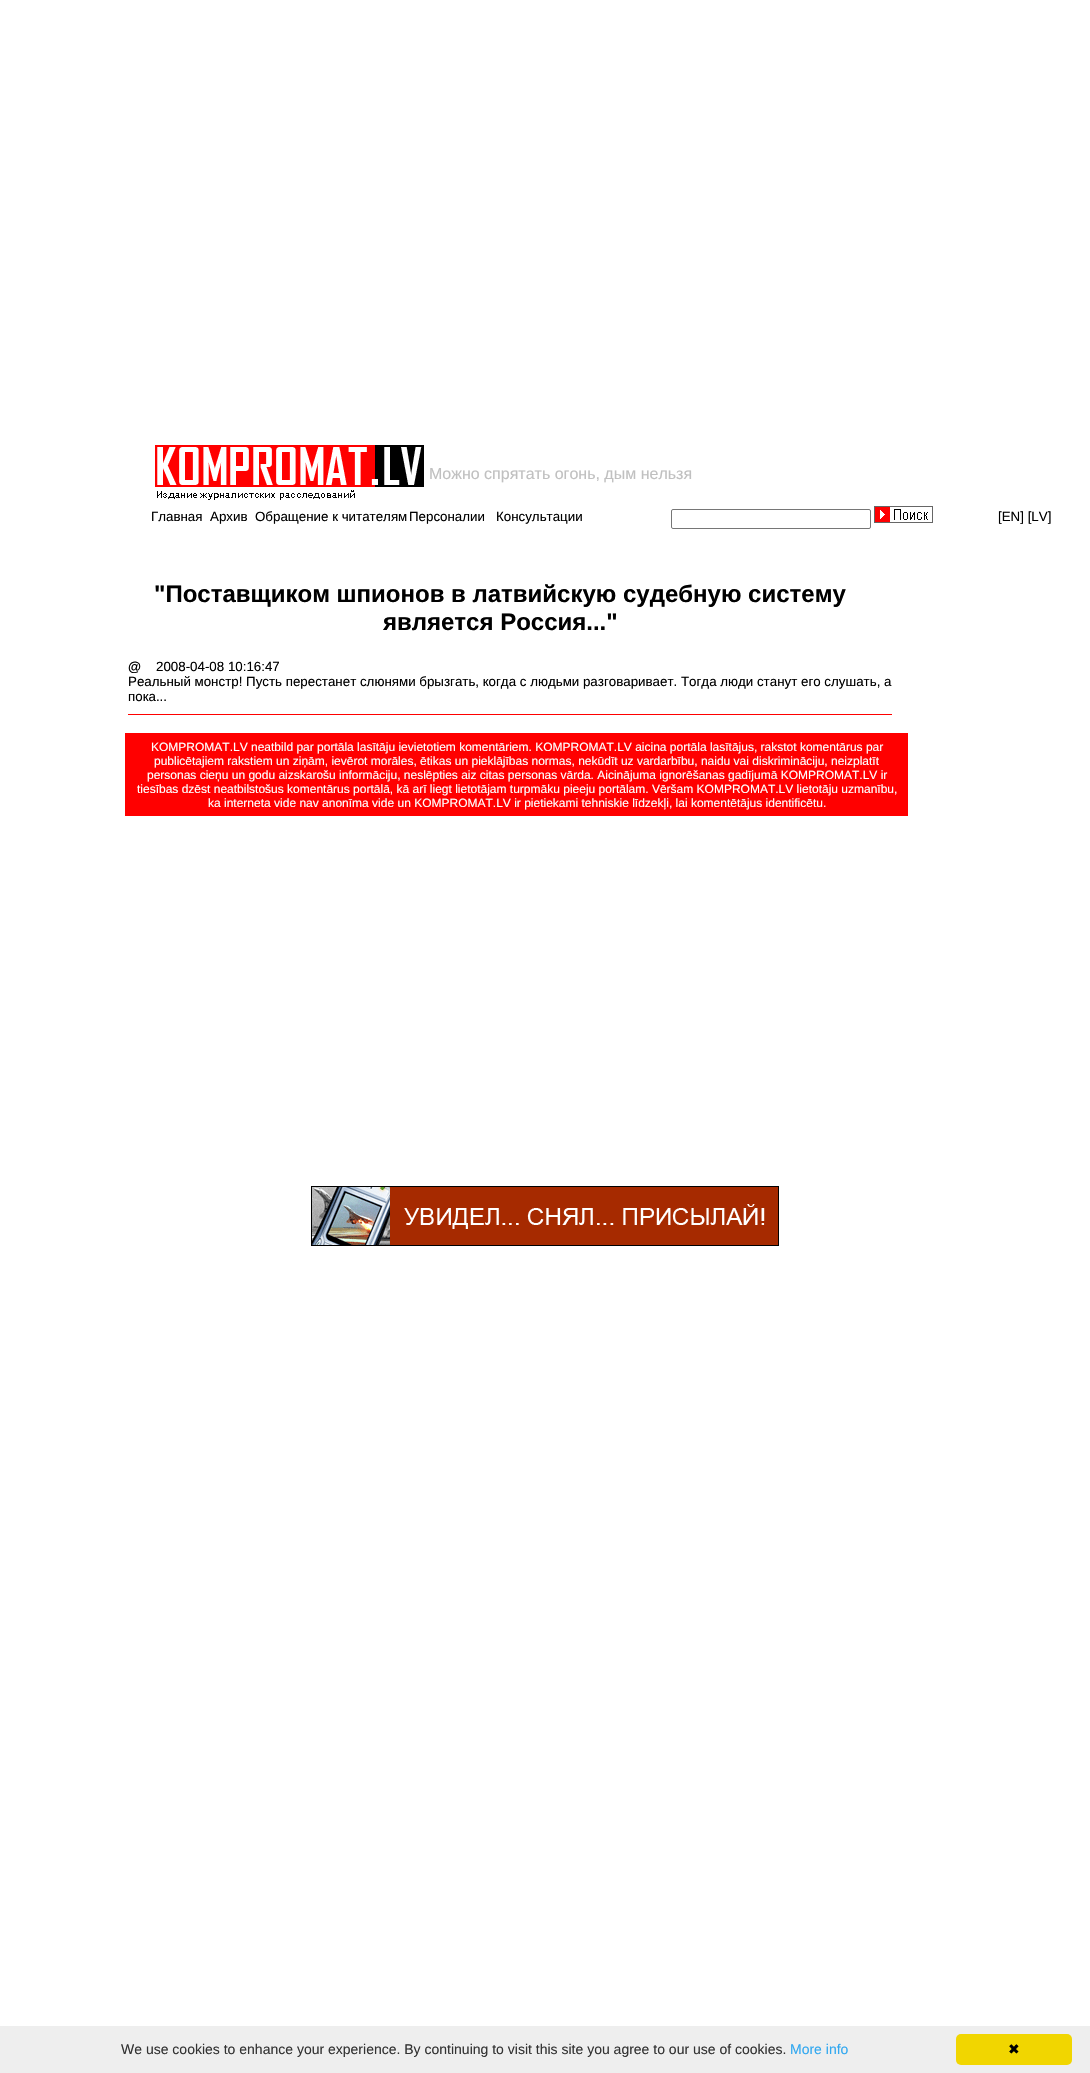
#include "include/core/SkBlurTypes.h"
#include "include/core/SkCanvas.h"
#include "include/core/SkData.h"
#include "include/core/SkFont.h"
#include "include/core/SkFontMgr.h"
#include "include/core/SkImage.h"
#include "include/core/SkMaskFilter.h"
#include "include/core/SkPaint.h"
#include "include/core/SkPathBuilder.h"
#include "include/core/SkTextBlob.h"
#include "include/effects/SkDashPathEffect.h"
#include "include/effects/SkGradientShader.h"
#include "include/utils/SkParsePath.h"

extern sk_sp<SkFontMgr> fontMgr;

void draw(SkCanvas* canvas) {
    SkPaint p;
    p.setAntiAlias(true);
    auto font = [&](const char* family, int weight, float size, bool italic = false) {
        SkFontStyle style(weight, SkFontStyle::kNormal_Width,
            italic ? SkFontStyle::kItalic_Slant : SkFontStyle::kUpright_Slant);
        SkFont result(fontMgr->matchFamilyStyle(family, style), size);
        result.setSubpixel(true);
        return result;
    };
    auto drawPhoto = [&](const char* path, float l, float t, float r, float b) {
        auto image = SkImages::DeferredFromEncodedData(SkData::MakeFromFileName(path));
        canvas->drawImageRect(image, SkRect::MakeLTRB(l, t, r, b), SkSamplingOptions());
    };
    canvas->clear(0xFFFFFFFF);
    drawPhoto("media/1.png", 155, 445, 424, 500);
    auto font1 = font("Liberation Sans", 400, 16);
    p.setColor(0xFFC0C0C0);
    canvas->drawString("Можно спрятать огонь, дым нельзя", 429, 479, font1, p);
    auto font2 = font("Liberation Sans", 400, 13.33f);
    p.setColor(0xFF000000);
    {
        const struct { const char* s; float x, y; } items[] = {
            {"Главная", 151, 521},
            {"Архив", 210, 521},
            {"Обращение к читателям", 255, 521},
            {"Персоналии", 409, 521},
            {"Консультации", 496, 521},
        };
        for (auto [s, x, y] : items) {
            canvas->drawString(s, x, y, font2, p);
        }
    }
    p.setStyle(SkPaint::kStroke_Style);
    p.setStrokeWidth(1);
    p.setColor(0xFF767676);
    canvas->drawRoundRect(SkRect::MakeLTRB(671.5f, 509.5f, 870.5f, 528.5f), 1.5f, 1.5f, p);
    drawPhoto("media/2.png", 874, 506, 933, 523);
    p.setStyle(SkPaint::kFill_Style);
    p.setColor(0xFF000000);
    canvas->drawString("[EN] [LV]", 998, 521, font2, p);
    auto font3 = font("Liberation Sans", 700, 24);
    canvas->drawString("\"Поставщиком шпионов в латвийскую судебную систему", 154, 602, font3, p);
    canvas->drawString("является Россия...\"", 383, 630, font3, p);
    auto font4 = font("Liberation Sans", 700, 13.33f);
    canvas->drawString("@", 128, 671, font4, p);
    {
        const struct { const char* s; float x, y; } items[] = {
            {"2008-04-08 10:16:47", 156, 671},
            {"Реальный монстр! Пусть перестанет слюнями брызгать, когда с людьми разговаривает. Тогда люди станут его слушать, а", 128, 686},
            {"пока...", 128, 701},
        };
        for (auto [s, x, y] : items) {
            canvas->drawString(s, x, y, font2, p);
        }
    }
    p.setColor(0xFFFF0000);
    canvas->drawRect(SkRect::MakeLTRB(128, 714, 892, 715), p);
    canvas->drawRect(SkRect::MakeLTRB(125, 733, 908, 816), p);
    auto font5 = font("Liberation Sans", 400, 12);
    p.setColor(0xFFFFFFFF);
    {
        const struct { const char* s; float x, y; } items[] = {
            {"KOMPROMAT.LV neatbild par portāla lasītāju ievietotiem komentāriem. KOMPROMAT.LV aicina portāla lasītājus, rakstot komentārus par", 151, 751},
            {"publicētajiem rakstiem un ziņām, ievērot morāles, ētikas un pieklājības normas, nekūdīt uz vardarbību, naidu vai diskrimināciju, neizplatīt", 154, 765},
            {"personas cieņu un godu aizskarošu informāciju, neslēpties aiz citas personas vārda. Aicinājuma ignorēšanas gadījumā KOMPROMAT.LV ir", 147, 779},
            {"tiesības dzēst neatbilstošus komentārus portālā, kā arī liegt lietotājam turpmāku pieeju portālam. Vēršam KOMPROMAT.LV lietotāju uzmanību,", 137, 793},
            {"ka interneta vide nav anonīma vide un KOMPROMAT.LV ir pietiekami tehniskie līdzekļi, lai komentētājus identificētu.", 208, 807},
        };
        for (auto [s, x, y] : items) {
            canvas->drawString(s, x, y, font5, p);
        }
    }
    drawPhoto("media/3.png", 311, 1186, 779, 1246);
    p.setColor(0xFFEEEEEE);
    canvas->drawRect(SkRect::MakeLTRB(0, 2026, 1090, 2073), p);
    auto font6 = font("Liberation Sans", 400, 14);
    p.setColor(0xFF333333);
    canvas->drawString("We use cookies to enhance your experience. By continuing to visit this site you agree to our use of cookies.", 121, 2054, font6, p);
    p.setColor(0xFF31A8F0);
    canvas->drawString("More info", 790, 2054, font6, p);
    p.setColor(0xFFF1D600);
    canvas->drawRoundRect(SkRect::MakeLTRB(956, 2034, 1072, 2065), 5, 5, p);
    auto font7 = font("DejaVu Sans", 400, 14);
    p.setColor(0xFF000000);
    canvas->drawString("✖", 1008, 2054, font7, p);
}
